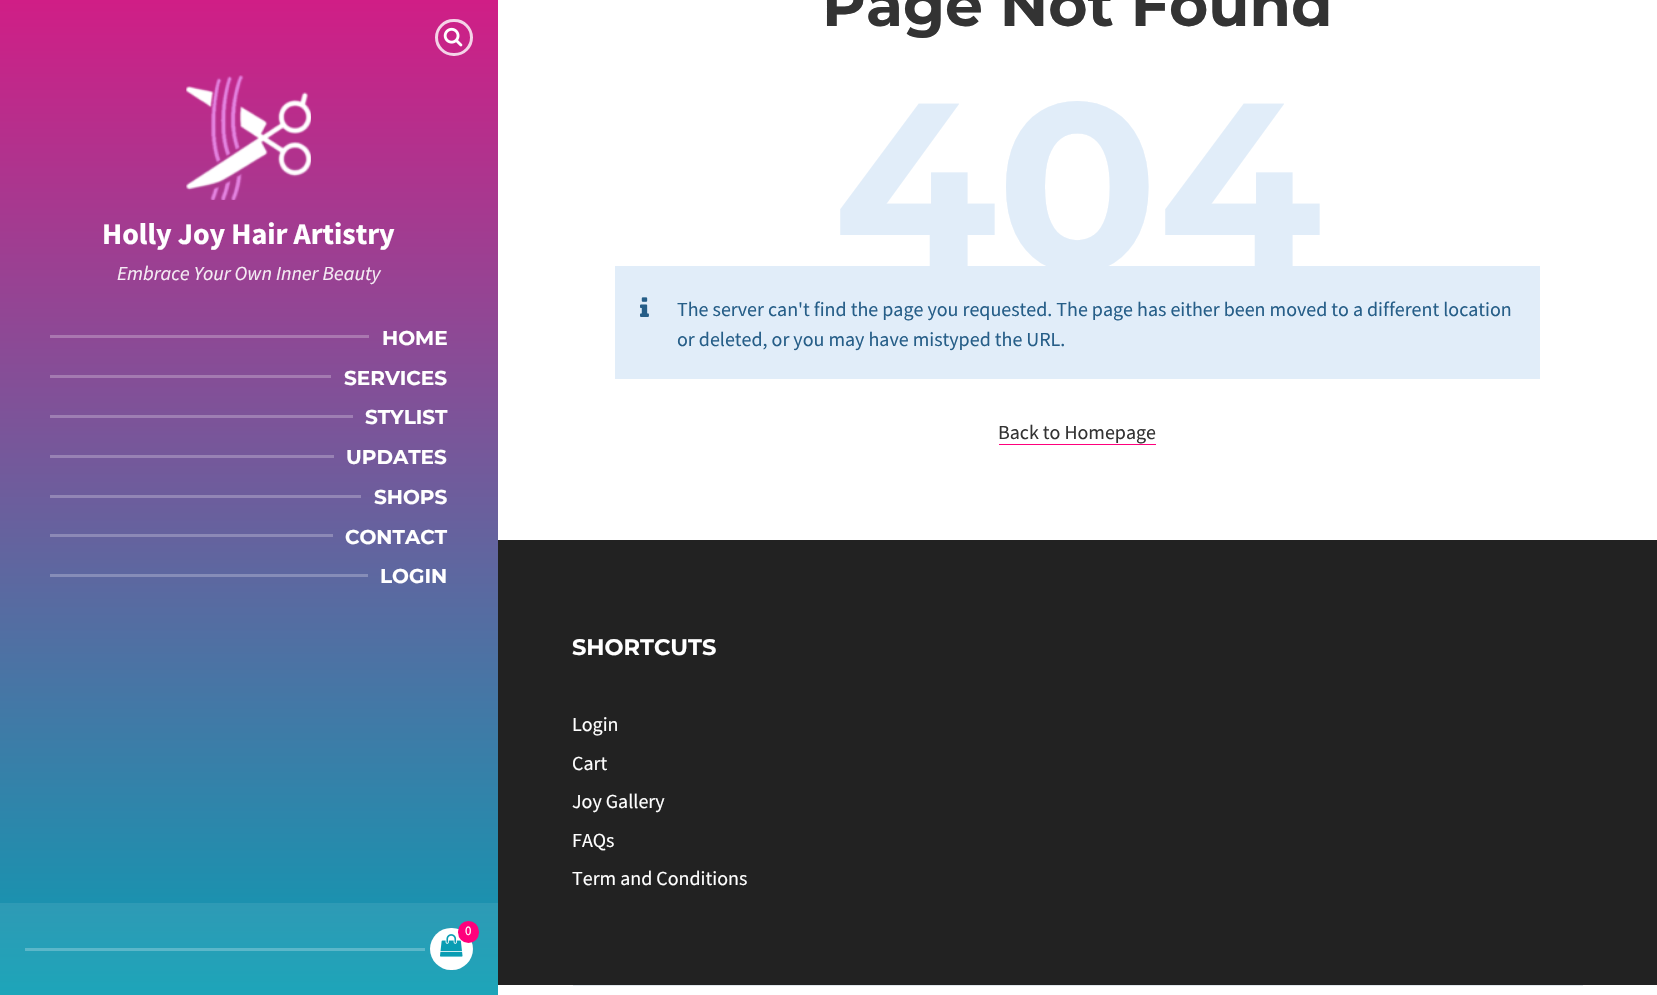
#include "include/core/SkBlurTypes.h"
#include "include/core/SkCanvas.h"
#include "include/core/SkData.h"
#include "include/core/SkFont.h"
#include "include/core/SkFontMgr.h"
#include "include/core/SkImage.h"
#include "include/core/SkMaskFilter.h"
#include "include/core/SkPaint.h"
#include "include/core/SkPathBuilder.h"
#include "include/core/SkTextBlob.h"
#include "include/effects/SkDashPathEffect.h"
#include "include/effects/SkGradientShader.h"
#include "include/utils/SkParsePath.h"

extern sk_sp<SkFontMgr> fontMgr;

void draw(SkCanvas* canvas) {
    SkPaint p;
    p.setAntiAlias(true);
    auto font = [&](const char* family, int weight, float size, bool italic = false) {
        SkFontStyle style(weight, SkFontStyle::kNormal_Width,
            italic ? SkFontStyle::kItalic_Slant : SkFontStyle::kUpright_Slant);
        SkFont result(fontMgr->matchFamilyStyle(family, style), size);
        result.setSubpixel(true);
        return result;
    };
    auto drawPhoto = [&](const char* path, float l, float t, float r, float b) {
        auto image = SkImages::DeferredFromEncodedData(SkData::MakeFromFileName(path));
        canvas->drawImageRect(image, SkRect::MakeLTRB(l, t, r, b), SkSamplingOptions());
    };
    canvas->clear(0xFFFFFFFF);
    {
        const SkColor colors[] = {0xFFD01E86, 0xFF099DB3};
        const float stops[] = {0, 1};
        const SkPoint ends[] = {{249, 0}, {249, 995}};
        p.setShader(SkGradientShader::MakeLinear(ends, colors, stops, 2, SkTileMode::kClamp));
        p.setAlpha(255);
    }
    canvas->drawRect(SkRect::MakeLTRB(0, 0, 498, 903), p);
    {
        const SkColor colors[] = {0xFFD43090, 0xFF1DA5B9};
        const float stops[] = {0, 1};
        const SkPoint ends[] = {{249, 0}, {249, 995}};
        p.setShader(SkGradientShader::MakeLinear(ends, colors, stops, 2, SkTileMode::kClamp));
        p.setAlpha(255);
    }
    canvas->drawRect(SkRect::MakeLTRB(0, 903, 498, 995), p);
    p.setStyle(SkPaint::kStroke_Style);
    p.setStrokeWidth(3);
    p.setShader(nullptr);
    p.setColor(0xCCFFFFFF);
    canvas->drawRoundRect(SkRect::MakeLTRB(436.5f, 20.5f, 471.5f, 54.5f), 17, 17, p);
    drawPhoto("media/1.png", 443, 27, 463, 47);
    drawPhoto("media/2.png", 186, 75, 311, 200);
    auto font1 = font("Source Sans Pro", 700, 30);
    p.setStyle(SkPaint::kFill_Style);
    p.setColor(0xFFFFFFFF);
    canvas->drawString("Holly Joy Hair Artistry", 102, 244, font1, p);
    auto font2 = font("Source Sans Pro", 400, 20, true);
    p.setColor(0xFFF5ECF4);
    canvas->drawString("Embrace Your Own Inner Beauty", 117, 280, font2, p);
    p.setColor(0xFFAA77B0);
    canvas->drawRect(SkRect::MakeLTRB(50, 335, 369, 338), p);
    auto font3 = font("Montserrat", 700, 20);
    p.setColor(0xFFFFFFFF);
    canvas->drawString("HOME", 382, 345, font3, p);
    p.setColor(0xFFA47AB1);
    canvas->drawRect(SkRect::MakeLTRB(50, 375, 331, 378), p);
    p.setColor(0xFFFFFFFF);
    canvas->drawString("SERVICES", 344, 385, font3, p);
    p.setColor(0xFF9E7EB3);
    canvas->drawRect(SkRect::MakeLTRB(50, 415, 353, 418), p);
    p.setColor(0xFFFFFFFF);
    canvas->drawString("STYLIST", 365, 424, font3, p);
    p.setColor(0xFF9882B4);
    canvas->drawRect(SkRect::MakeLTRB(50, 455, 334, 458), p);
    p.setColor(0xFFFFFFFF);
    canvas->drawString("UPDATES", 346, 464, font3, p);
    p.setColor(0xFF9286B5);
    canvas->drawRect(SkRect::MakeLTRB(50, 495, 361, 498), p);
    p.setColor(0xFFFFFFFF);
    canvas->drawString("SHOPS", 374, 504, font3, p);
    p.setColor(0xFF8C89B6);
    canvas->drawRect(SkRect::MakeLTRB(50, 534, 333, 537), p);
    p.setColor(0xFFFFFFFF);
    canvas->drawString("CONTACT", 345, 544, font3, p);
    p.setColor(0xFF868DB8);
    canvas->drawRect(SkRect::MakeLTRB(50, 574, 368, 577), p);
    p.setColor(0xFFFFFFFF);
    canvas->drawString("LOGIN", 380, 583, font3, p);
    canvas->drawRoundRect(SkRect::MakeLTRB(430, 928, 473, 970), 21, 21, p);
    drawPhoto("media/3.png", 440, 934, 463, 957);
    p.setColor(0xFFFF007C);
    canvas->drawRoundRect(SkRect::MakeLTRB(458, 921, 479, 943), 10.5f, 10.5f, p);
    auto font4 = font("Source Sans Pro", 400, 13);
    p.setColor(0xFFFFFFFF);
    canvas->drawString("0", 465, 935, font4, p);
    p.setColor(0xFF5BB7C9);
    canvas->drawRect(SkRect::MakeLTRB(25, 948, 425, 951), p);
    p.setColor(0xFF222222);
    canvas->drawRect(SkRect::MakeLTRB(498, 540, 1657, 985), p);
    auto font5 = font("Montserrat", 700, 22.5f);
    p.setColor(0xFFFFFFFF);
    canvas->drawString("SHORTCUTS", 572, 655, font5, p);
    auto font6 = font("Source Sans Pro", 400, 20);
    {
        const struct { const char* s; float x, y; } items[] = {
            {"Login", 572, 731},
            {"Cart", 572, 770},
            {"Joy Gallery", 572, 808},
            {"FAQs", 572, 847},
            {"Term and Conditions", 572, 885},
        };
        for (auto [s, x, y] : items) {
            canvas->drawString(s, x, y, font6, p);
        }
    }
    p.setColor(0xFFE1E7EC);
    canvas->drawRect(SkRect::MakeLTRB(573, 985, 1583, 986), p);
    auto font7 = font("Montserrat", 700, 60);
    p.setColor(0xFF333333);
    canvas->drawString("Page Not Found", 822, 26, font7, p);
    auto font8 = font("Montserrat", 700, 237.5f);
    p.setColor(0xFFE1EDF9);
    canvas->drawString("404", 833, 270, font8, p);
    canvas->drawRect(SkRect::MakeLTRB(615, 266, 1540, 379), p);
    drawPhoto("media/4.png", 640, 297, 649, 317);
    p.setColor(0xFF265E88);
    canvas->drawString("The server can't find the page you requested. The page has either been moved to a different location", 677, 316, font6, p);
    canvas->drawString("or deleted, or you may have mistyped the URL.", 677, 346, font6, p);
    p.setColor(0xFF333333);
    canvas->drawString("Back to Homepage", 998, 439, font6, p);
    p.setColor(0xFFFF007C);
    canvas->drawRect(SkRect::MakeLTRB(999, 444, 1156, 445), p);
}
